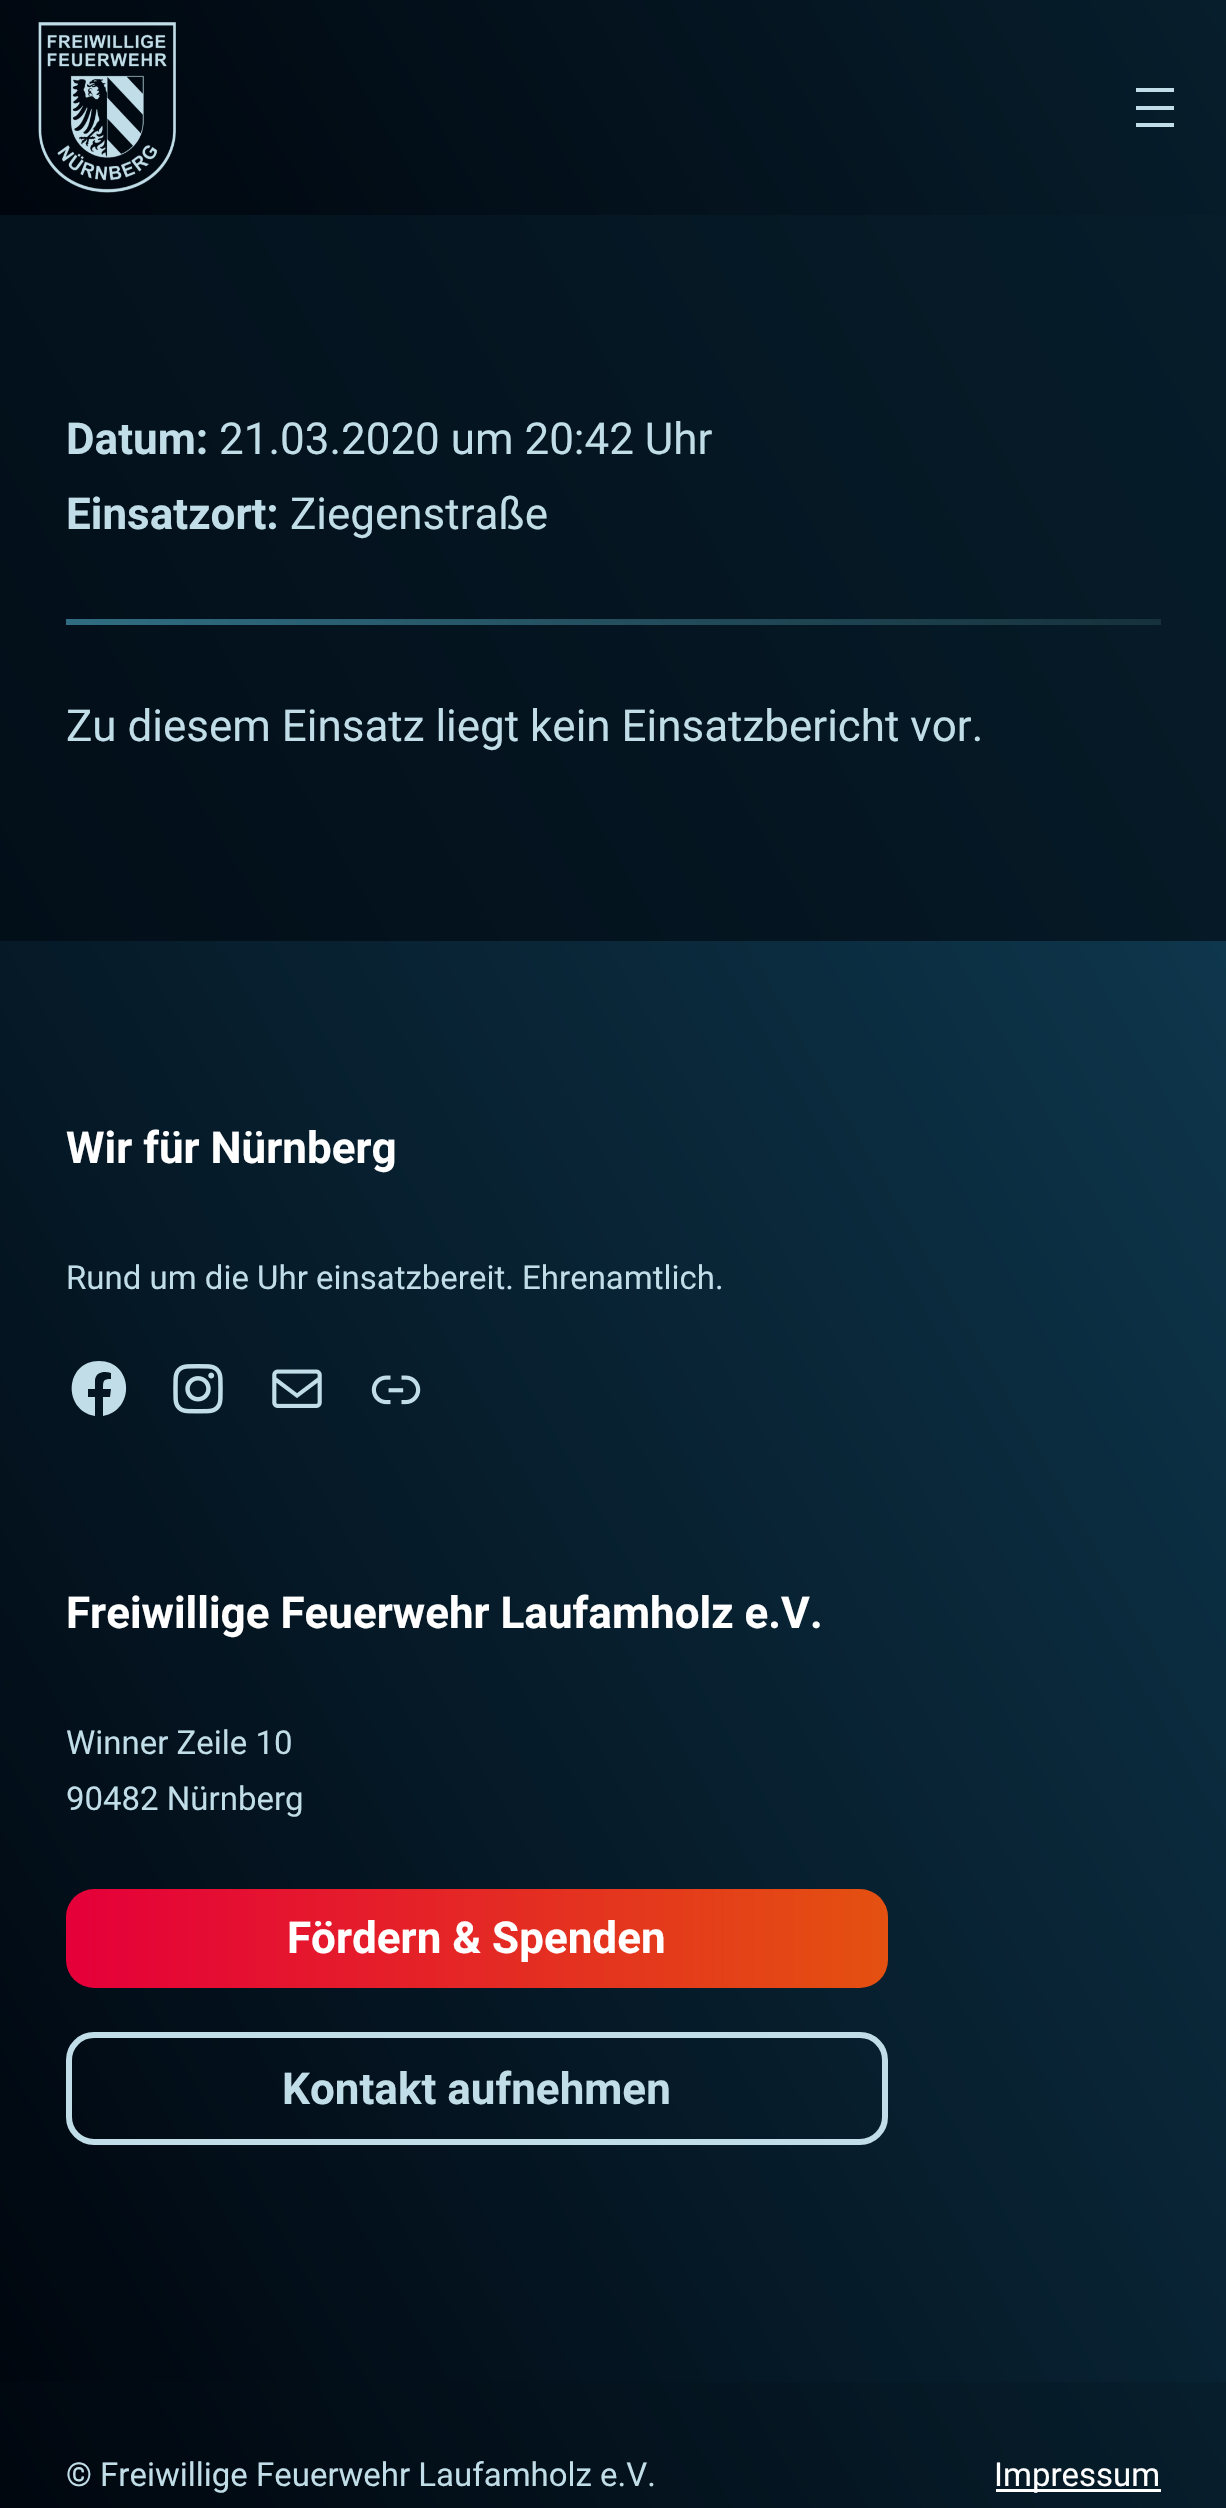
#include "include/core/SkBlurTypes.h"
#include "include/core/SkCanvas.h"
#include "include/core/SkData.h"
#include "include/core/SkFont.h"
#include "include/core/SkFontMgr.h"
#include "include/core/SkImage.h"
#include "include/core/SkMaskFilter.h"
#include "include/core/SkPaint.h"
#include "include/core/SkPathBuilder.h"
#include "include/core/SkTextBlob.h"
#include "include/effects/SkDashPathEffect.h"
#include "include/effects/SkGradientShader.h"
#include "include/utils/SkParsePath.h"

extern sk_sp<SkFontMgr> fontMgr;

void draw(SkCanvas* canvas) {
    SkPaint p;
    p.setAntiAlias(true);
    auto font = [&](const char* family, int weight, float size, bool italic = false) {
        SkFontStyle style(weight, SkFontStyle::kNormal_Width,
            italic ? SkFontStyle::kItalic_Slant : SkFontStyle::kUpright_Slant);
        SkFont result(fontMgr->matchFamilyStyle(family, style), size);
        result.setSubpixel(true);
        return result;
    };
    auto drawPhoto = [&](const char* path, float l, float t, float r, float b) {
        auto image = SkImages::DeferredFromEncodedData(SkData::MakeFromFileName(path));
        canvas->drawImageRect(image, SkRect::MakeLTRB(l, t, r, b), SkSamplingOptions());
    };
    canvas->clear(0xFFFFFFFF);
    {
        const SkColor colors[] = {0xFF00060E, 0xFF071E2C};
        const float stops[] = {0.01f, 1};
        const SkPoint ends[] = {{-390, 1833}, {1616, 675}};
        p.setShader(SkGradientShader::MakeLinear(ends, colors, stops, 2, SkTileMode::kClamp));
        p.setAlpha(255);
    }
    canvas->drawRect(SkRect::MakeLTRB(0, 215, 1226, 941), p);
    {
        const SkColor colors[] = {0xFF00060E, 0xFF071E2C};
        const float stops[] = {0.01f, 1};
        const SkPoint ends[] = {{107, 400}, {1120, -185}};
        p.setShader(SkGradientShader::MakeLinear(ends, colors, stops, 2, SkTileMode::kClamp));
        p.setAlpha(255);
    }
    canvas->drawRect(SkRect::MakeLTRB(0, 0, 1226, 215), p);
    drawPhoto("media/1.png", 38, 22, 176, 193);
    p.setShader(nullptr);
    {
        const struct { float l, t, r, b; SkColor color; } items[] = {
            {1136, 88, 1174, 92, 0xFFC1DEE8},
            {1136, 106, 1174, 110, 0xFFC1DEE8},
            {1136, 123, 1174, 127, 0xFFC1DEE8},
        };
        for (auto [l, t, r, b, color] : items) {
            p.setColor(color);
            canvas->drawRect(SkRect::MakeLTRB(l, t, r, b), p);
        }
    }
    auto font1 = font("Roboto", 700, 44);
    canvas->drawString("Datum:", 66, 454, font1, p);
    auto font2 = font("Roboto", 400, 44);
    canvas->drawString("21.03.2020 um 20:42 Uhr", 219, 454, font2, p);
    canvas->drawString("Einsatzort:", 66, 529, font1, p);
    canvas->drawString("Ziegenstraße", 290, 529, font2, p);
    {
        const SkColor colors[] = {0xFF306D82, 0xFF16313B};
        const float stops[] = {0, 1};
        const SkPoint ends[] = {{202, 859}, {1025, 384}};
        p.setShader(SkGradientShader::MakeLinear(ends, colors, stops, 2, SkTileMode::kClamp));
        p.setAlpha(255);
    }
    canvas->drawRect(SkRect::MakeLTRB(66, 619, 1161, 625), p);
    p.setShader(nullptr);
    p.setColor(0xFFC1DEE8);
    canvas->drawString("Zu diesem Einsatz liegt kein Einsatzbericht vor.", 66, 741, font2, p);
    {
        const SkColor colors[] = {0xFF00060E, 0xFF0E364C};
        const float stops[] = {0, 1};
        const SkPoint ends[] = {{-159, 2107}, {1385, 1215}};
        p.setShader(SkGradientShader::MakeLinear(ends, colors, stops, 2, SkTileMode::kClamp));
        p.setAlpha(255);
    }
    canvas->drawRect(SkRect::MakeLTRB(0, 941, 1226, 2382), p);
    p.setShader(nullptr);
    p.setColor(0xFFFFFFFF);
    canvas->drawString("Wir für Nürnberg", 66, 1163, font1, p);
    auto font3 = font("Roboto", 400, 33);
    p.setColor(0xFFC1DEE8);
    canvas->drawString("Rund um die Uhr einsatzbereit. Ehrenamtlich.", 66, 1289, font3, p);
    canvas->drawPath(SkPathBuilder().moveTo(99, 1361).cubicTo(65, 1361, 62, 1410, 95, 1416).lineTo(95, 1397).lineTo(88, 1397).lineTo(88, 1389).lineTo(95, 1389).lineTo(95, 1380).cubicTo(96, 1372, 104, 1371, 111, 1373).lineTo(111, 1379).cubicTo(103, 1379, 103, 1381, 103, 1389).lineTo(111, 1389).lineTo(110, 1397).lineTo(103, 1397).lineTo(103, 1416).cubicTo(136, 1410, 133, 1361, 99, 1361).close().detach(), p);
    drawPhoto("media/2.png", 173, 1364, 223, 1414);
    drawPhoto("media/3.png", 272, 1369, 322, 1408);
    drawPhoto("media/4.png", 371, 1375, 421, 1405);
    p.setColor(0xFFFFFFFF);
    canvas->drawString("Freiwillige Feuerwehr Laufamholz e.V.", 66, 1628, font1, p);
    p.setColor(0xFFC1DEE8);
    canvas->drawString("Winner Zeile 10", 66, 1754, font3, p);
    canvas->drawString("90482 Nürnberg", 66, 1810, font3, p);
    {
        const SkColor colors[] = {0xFFE50039, 0xFFE45110};
        const float stops[] = {0.02f, 1};
        const SkPoint ends[] = {{66, 1939}, {888, 1939}};
        p.setShader(SkGradientShader::MakeLinear(ends, colors, stops, 2, SkTileMode::kClamp));
        p.setAlpha(255);
    }
    canvas->drawRoundRect(SkRect::MakeLTRB(66, 1889, 888, 1988), 28, 28, p);
    p.setShader(nullptr);
    p.setColor(0xFFFFFFFF);
    canvas->drawString("Fördern & Spenden", 287, 1953, font1, p);
    p.setStyle(SkPaint::kStroke_Style);
    p.setStrokeWidth(6);
    p.setColor(0xFFC1DEE8);
    canvas->drawRoundRect(SkRect::MakeLTRB(69, 2035, 885, 2142), 25, 25, p);
    p.setStyle(SkPaint::kFill_Style);
    canvas->drawString("Kontakt aufnehmen", 282, 2104, font1, p);
    {
        const SkColor colors[] = {0xFF00060E, 0xFF071E2C};
        const float stops[] = {0.01f, 0.98f};
        const SkPoint ends[] = {{113, 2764}, {1114, 2186}};
        p.setShader(SkGradientShader::MakeLinear(ends, colors, stops, 2, SkTileMode::kClamp));
        p.setAlpha(255);
    }
    canvas->drawRect(SkRect::MakeLTRB(0, 2382, 1226, 2508), p);
    p.setShader(nullptr);
    p.setColor(0xFFC1DEE8);
    canvas->drawString("© Freiwillige Feuerwehr Laufamholz e.V.", 66, 2486, font3, p);
    p.setColor(0xFFFFFFFF);
    canvas->drawRect(SkRect::MakeLTRB(996, 2489, 1161, 2492), p);
    canvas->drawString("Impressum", 994, 2486, font3, p);
}
